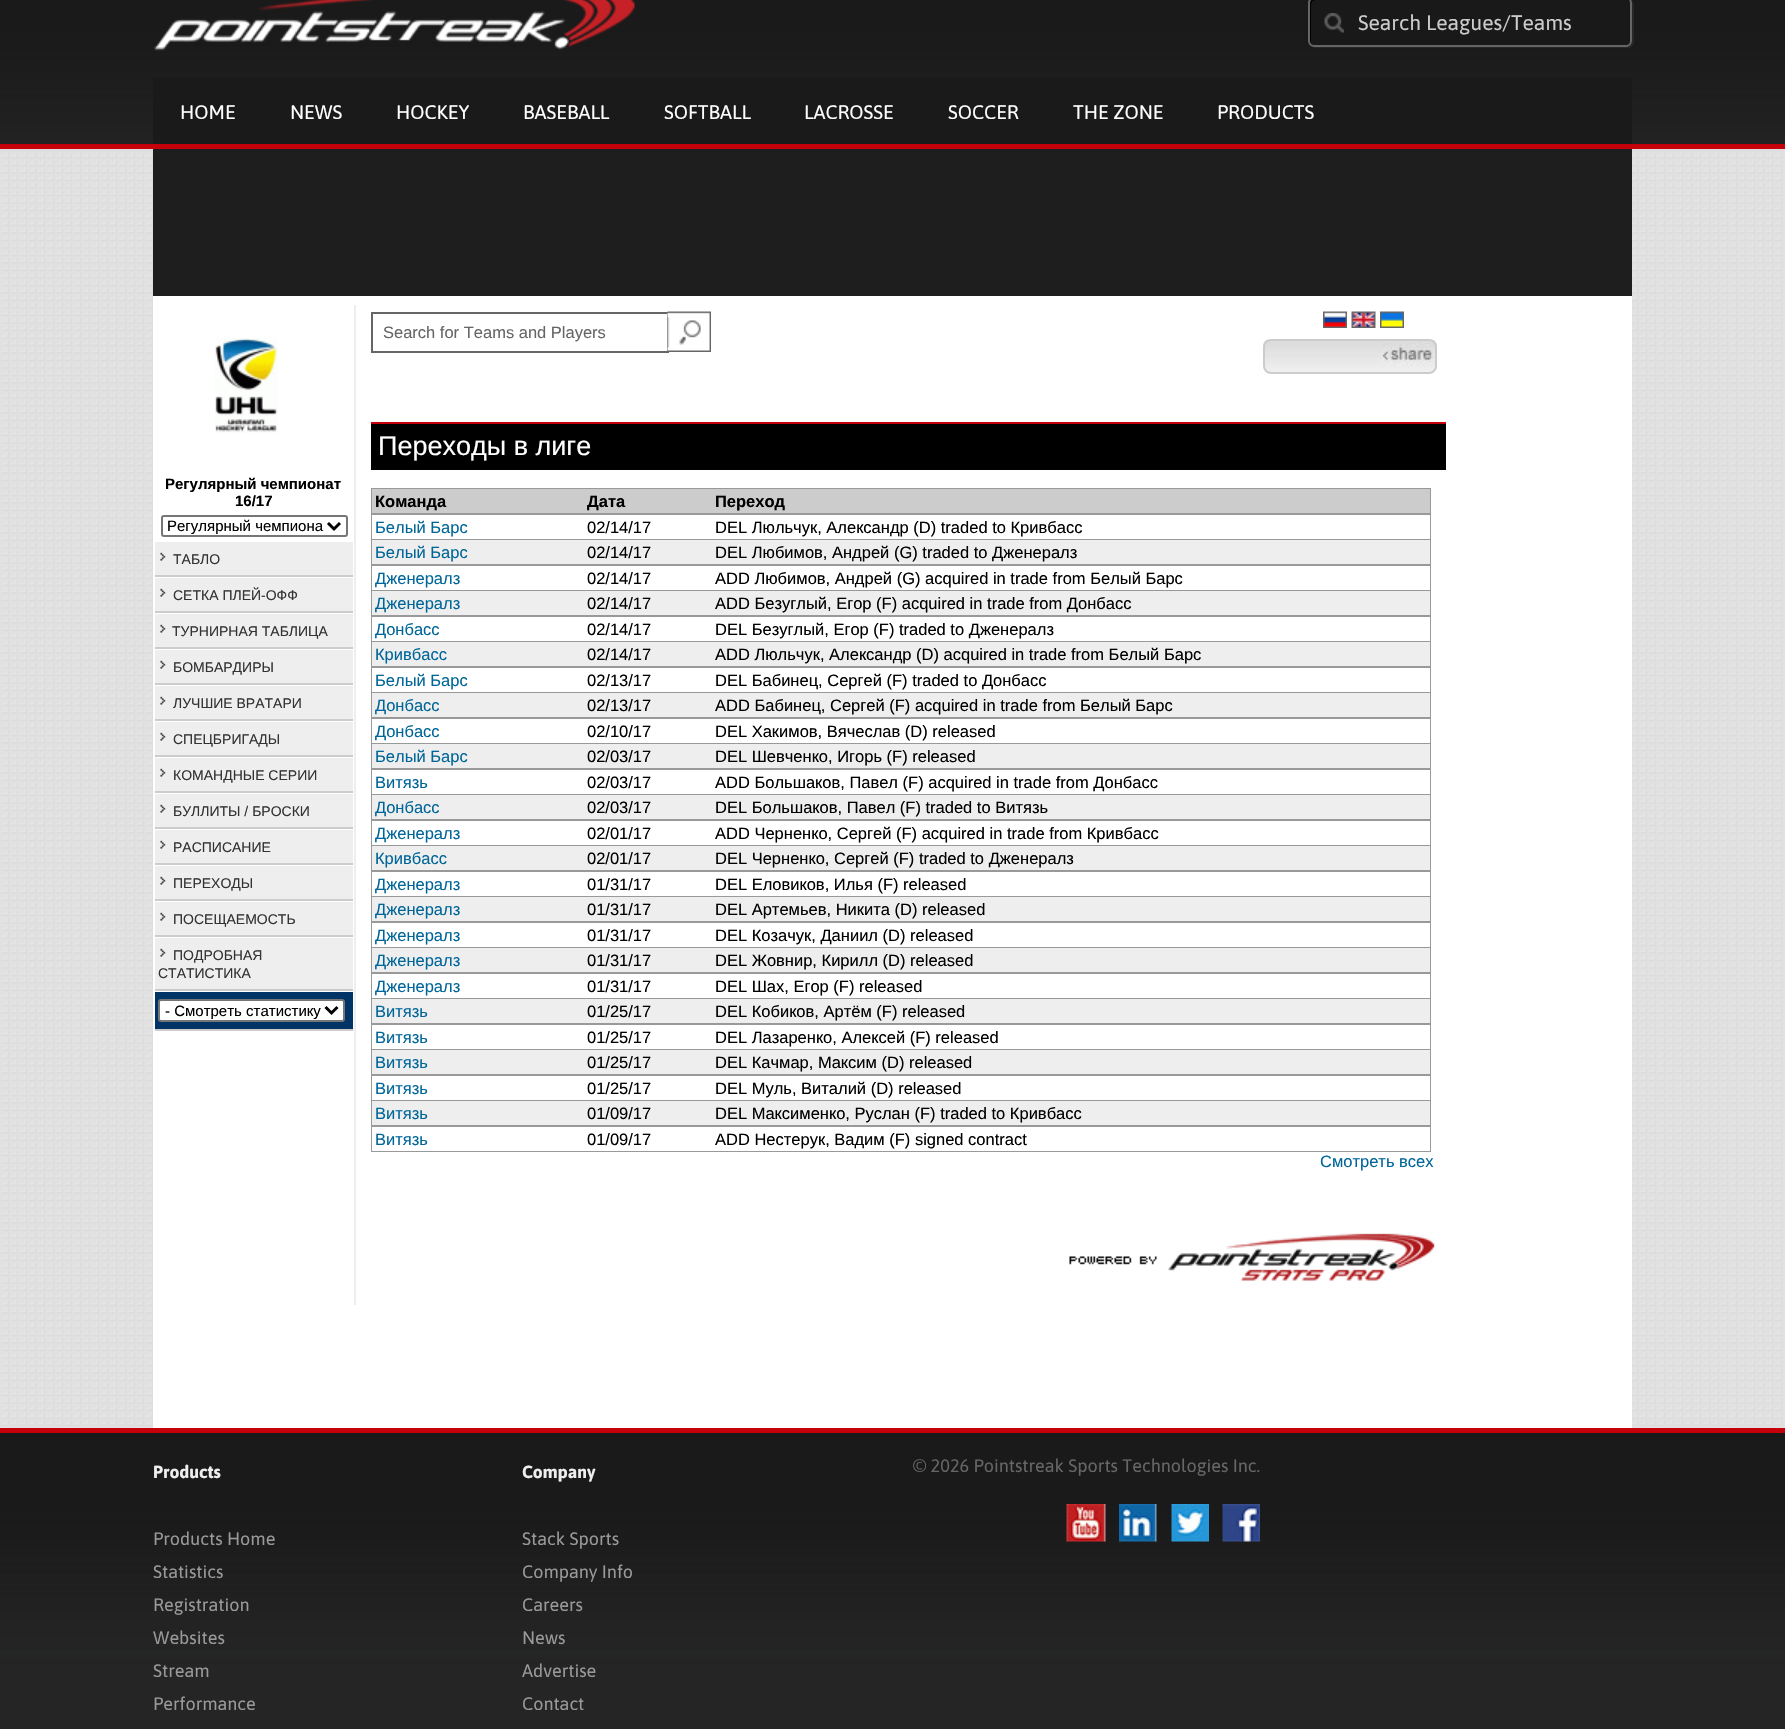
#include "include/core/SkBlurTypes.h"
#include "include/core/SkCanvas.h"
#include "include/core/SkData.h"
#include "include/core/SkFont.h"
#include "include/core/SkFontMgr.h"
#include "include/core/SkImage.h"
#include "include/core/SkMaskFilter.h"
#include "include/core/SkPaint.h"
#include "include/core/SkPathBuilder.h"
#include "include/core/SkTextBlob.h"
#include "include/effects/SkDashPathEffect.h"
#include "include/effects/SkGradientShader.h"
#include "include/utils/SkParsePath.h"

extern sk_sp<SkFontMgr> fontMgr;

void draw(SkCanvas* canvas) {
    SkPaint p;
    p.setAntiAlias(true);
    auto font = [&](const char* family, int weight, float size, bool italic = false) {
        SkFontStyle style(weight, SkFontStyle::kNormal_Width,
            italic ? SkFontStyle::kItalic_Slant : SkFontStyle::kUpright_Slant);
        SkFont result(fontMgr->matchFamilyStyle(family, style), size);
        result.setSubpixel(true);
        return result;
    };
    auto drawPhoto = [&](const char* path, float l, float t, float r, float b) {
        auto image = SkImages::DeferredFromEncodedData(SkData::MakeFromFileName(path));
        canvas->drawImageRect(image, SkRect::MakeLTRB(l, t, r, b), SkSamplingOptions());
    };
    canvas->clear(0xFFFFFFFF);
    drawPhoto("media/1.png", 0, 149, 1785, 1428);
    drawPhoto("media/2.png", 0, 0, 1785, 144);
    p.setColor(0xFFC6000A);
    canvas->drawRect(SkRect::MakeLTRB(0, 144, 1785, 149), p);
    drawPhoto("media/3.png", 154, 0, 635, 51);
    p.setColor(0xFF272827);
    canvas->drawPath(SkPathBuilder().moveTo(1311, 46).cubicTo(1313, 47, 1314, 48, 1316, 48).lineTo(1628, 48).cubicTo(1631, 48, 1634, 45, 1634, 42).lineTo(1634, 5).cubicTo(1634, 3, 1633, 1, 1631, 0).lineTo(1632, 3).lineTo(1632, 40).cubicTo(1632, 44, 1629, 46, 1626, 46).lineTo(1314, 46).close().detach(), p);
    p.setColor(0xFF191919);
    canvas->drawRoundRect(SkRect::MakeLTRB(1308, -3, 1632, 47), 6, 6, p);
    drawPhoto("media/4.png", 1324, 13, 1344, 33);
    p.setColor(0xFF000000);
    canvas->drawPath(SkPathBuilder().moveTo(1316, 0).lineTo(1629, 0).cubicTo(1628, -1, 1627, -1, 1626, -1).lineTo(1315, -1).cubicTo(1312, -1, 1310, 1, 1310, 4).lineTo(1310, 40).cubicTo(1310, 41, 1310, 42, 1311, 43).lineTo(1311, 10).cubicTo(1311, 6, 1310, 0, 1316, 0).close().detach(), p);
    p.setStyle(SkPaint::kStroke_Style);
    p.setStrokeWidth(2);
    p.setColor(0xFF666666);
    canvas->drawRoundRect(SkRect::MakeLTRB(1309, -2, 1631, 46), 5, 5, p);
    auto font1 = font("Asap", 400, 21);
    p.setStyle(SkPaint::kFill_Style);
    p.setColor(0xFFCCCCCC);
    canvas->drawString("Search Leagues/Teams", 1358, 30, font1, p);
    p.setColor(0xFF1A1A1A);
    canvas->drawRect(SkRect::MakeLTRB(153, 77, 1632, 144), p);
    auto font2 = font("Asap", 400, 19.5f);
    p.setColor(0xFFFFFFFF);
    {
        const struct { const char* s; float x, y; } items[] = {
            {"HOME", 180, 119},
            {"NEWS", 290, 119},
            {"HOCKEY", 396, 119},
            {"BASEBALL", 523, 119},
            {"SOFTBALL", 664, 119},
            {"LACROSSE", 804, 119},
            {"SOCCER", 948, 119},
            {"THE ZONE", 1073, 119},
            {"PRODUCTS", 1217, 119},
        };
        for (auto [s, x, y] : items) {
            canvas->drawString(s, x, y, font2, p);
        }
    }
    {
        const struct { float l, t, r, b; SkColor color; } items[] = {
            {153, 149, 1632, 296, 0xFF1E1E1E},
            {153, 296, 1632, 1428, 0xFFFFFFFF},
            {354, 305, 356, 1305, 0xFFEEEEEE},
        };
        for (auto [l, t, r, b, color] : items) {
            p.setColor(color);
            canvas->drawRect(SkRect::MakeLTRB(l, t, r, b), p);
        }
    }
    drawPhoto("media/5.png", 215, 338, 278, 433);
    auto font3 = font("Liberation Sans", 700, 15);
    p.setColor(0xFF000000);
    canvas->drawString("Регулярный чемпионат", 165, 489, font3, p);
    canvas->drawString("16/17", 235, 506, font3, p);
    p.setStyle(SkPaint::kStroke_Style);
    p.setColor(0xFF767676);
    canvas->drawRoundRect(SkRect::MakeLTRB(162, 516, 347, 536), 2, 2, p);
    p.setStrokeWidth(3);
    p.setColor(0xFF000000);
    canvas->drawPath(SkPathBuilder().moveTo(328, 523).lineTo(334, 529).lineTo(340, 523).detach(), p);
    auto font4 = font("Liberation Sans", 400, 15);
    p.setStyle(SkPaint::kFill_Style);
    canvas->drawString("Регулярный чемпиона", 167, 531, font4, p);
    p.setColor(0xFFEEEEEE);
    canvas->drawRect(SkRect::MakeLTRB(155, 542, 353, 575), p);
    p.setColor(0xFFCCCCCC);
    canvas->drawRect(SkRect::MakeLTRB(155, 575, 353, 577), p);
    drawPhoto("media/6.png", 160, 552, 166, 561);
    auto font5 = font("Liberation Sans", 400, 14);
    p.setColor(0xFF333333);
    canvas->drawString("ТАБЛО", 173, 564, font5, p);
    p.setColor(0xFFEEEEEE);
    canvas->drawRect(SkRect::MakeLTRB(155, 578, 353, 611), p);
    p.setColor(0xFFCCCCCC);
    canvas->drawRect(SkRect::MakeLTRB(155, 611, 353, 613), p);
    drawPhoto("media/6.png", 160, 588, 166, 597);
    p.setColor(0xFF333333);
    canvas->drawString("СЕТКА ПЛЕЙ-ОФФ", 173, 600, font5, p);
    p.setColor(0xFFEEEEEE);
    canvas->drawRect(SkRect::MakeLTRB(155, 614, 353, 647), p);
    p.setColor(0xFFCCCCCC);
    canvas->drawRect(SkRect::MakeLTRB(155, 647, 353, 649), p);
    drawPhoto("media/6.png", 160, 624, 166, 633);
    p.setColor(0xFF333333);
    canvas->drawString("ТУРНИРНАЯ ТАБЛИЦА", 172, 636, font5, p);
    p.setColor(0xFFEEEEEE);
    canvas->drawRect(SkRect::MakeLTRB(155, 650, 353, 683), p);
    p.setColor(0xFFCCCCCC);
    canvas->drawRect(SkRect::MakeLTRB(155, 683, 353, 685), p);
    drawPhoto("media/6.png", 160, 660, 166, 669);
    p.setColor(0xFF333333);
    canvas->drawString("БОМБАРДИРЫ", 173, 672, font5, p);
    p.setColor(0xFFEEEEEE);
    canvas->drawRect(SkRect::MakeLTRB(155, 686, 353, 719), p);
    p.setColor(0xFFCCCCCC);
    canvas->drawRect(SkRect::MakeLTRB(155, 719, 353, 721), p);
    drawPhoto("media/6.png", 160, 696, 166, 705);
    p.setColor(0xFF333333);
    canvas->drawString("ЛУЧШИЕ ВРАТАРИ", 173, 708, font5, p);
    p.setColor(0xFFEEEEEE);
    canvas->drawRect(SkRect::MakeLTRB(155, 722, 353, 755), p);
    p.setColor(0xFFCCCCCC);
    canvas->drawRect(SkRect::MakeLTRB(155, 755, 353, 757), p);
    drawPhoto("media/6.png", 160, 732, 166, 741);
    p.setColor(0xFF333333);
    canvas->drawString("СПЕЦБРИГАДЫ", 173, 744, font5, p);
    p.setColor(0xFFEEEEEE);
    canvas->drawRect(SkRect::MakeLTRB(155, 758, 353, 791), p);
    p.setColor(0xFFCCCCCC);
    canvas->drawRect(SkRect::MakeLTRB(155, 791, 353, 793), p);
    drawPhoto("media/6.png", 160, 768, 166, 777);
    p.setColor(0xFF333333);
    canvas->drawString("КОМАНДНЫЕ СЕРИИ", 173, 780, font5, p);
    p.setColor(0xFFEEEEEE);
    canvas->drawRect(SkRect::MakeLTRB(155, 794, 353, 827), p);
    p.setColor(0xFFCCCCCC);
    canvas->drawRect(SkRect::MakeLTRB(155, 827, 353, 829), p);
    drawPhoto("media/6.png", 160, 804, 166, 813);
    p.setColor(0xFF333333);
    canvas->drawString("БУЛЛИТЫ / БРОСКИ", 173, 816, font5, p);
    p.setColor(0xFFEEEEEE);
    canvas->drawRect(SkRect::MakeLTRB(155, 830, 353, 863), p);
    p.setColor(0xFFCCCCCC);
    canvas->drawRect(SkRect::MakeLTRB(155, 863, 353, 865), p);
    drawPhoto("media/6.png", 160, 840, 166, 849);
    p.setColor(0xFF333333);
    canvas->drawString("РАСПИСАНИЕ", 173, 852, font5, p);
    p.setColor(0xFFEEEEEE);
    canvas->drawRect(SkRect::MakeLTRB(155, 866, 353, 899), p);
    p.setColor(0xFFCCCCCC);
    canvas->drawRect(SkRect::MakeLTRB(155, 899, 353, 901), p);
    drawPhoto("media/6.png", 160, 876, 166, 885);
    p.setColor(0xFF333333);
    canvas->drawString("ПЕРЕХОДЫ", 173, 888, font5, p);
    p.setColor(0xFFEEEEEE);
    canvas->drawRect(SkRect::MakeLTRB(155, 902, 353, 935), p);
    p.setColor(0xFFCCCCCC);
    canvas->drawRect(SkRect::MakeLTRB(155, 935, 353, 937), p);
    drawPhoto("media/6.png", 160, 912, 166, 921);
    p.setColor(0xFF333333);
    canvas->drawString("ПОСЕЩАЕМОСТЬ", 173, 924, font5, p);
    p.setColor(0xFFEEEEEE);
    canvas->drawRect(SkRect::MakeLTRB(155, 938, 353, 989), p);
    p.setColor(0xFFCCCCCC);
    canvas->drawRect(SkRect::MakeLTRB(155, 989, 353, 991), p);
    drawPhoto("media/6.png", 160, 948, 166, 957);
    p.setColor(0xFF333333);
    canvas->drawString("ПОДРОБНАЯ", 173, 960, font5, p);
    canvas->drawString("СТАТИСТИКА", 158, 978, font5, p);
    p.setColor(0xFF003366);
    canvas->drawRect(SkRect::MakeLTRB(155, 992, 353, 1029), p);
    p.setColor(0xFFCCCCCC);
    canvas->drawRect(SkRect::MakeLTRB(155, 1029, 353, 1031), p);
    p.setColor(0xFFFFFFFF);
    canvas->drawRoundRect(SkRect::MakeLTRB(159, 1000, 344, 1021), 2, 2, p);
    p.setStyle(SkPaint::kStroke_Style);
    p.setStrokeWidth(2);
    p.setColor(0xFF767676);
    canvas->drawRoundRect(SkRect::MakeLTRB(159, 1000, 344, 1021), 2, 2, p);
    p.setStrokeWidth(3);
    p.setColor(0xFF000000);
    canvas->drawPath(SkPathBuilder().moveTo(325.5f, 1007).lineTo(331.5f, 1013).lineTo(337.5f, 1007).detach(), p);
    p.setStyle(SkPaint::kFill_Style);
    canvas->drawString("- Смотреть статистику", 165, 1016, font4, p);
    drawPhoto("media/7.png", 1323, 311, 1347, 328);
    drawPhoto("media/8.png", 1351, 311, 1376, 328);
    drawPhoto("media/9.png", 1380, 311, 1404, 328);
    p.setStyle(SkPaint::kStroke_Style);
    p.setStrokeWidth(2);
    p.setColor(0xFF666666);
    canvas->drawRect(SkRect::MakeLTRB(372, 313, 668, 352), p);
    auto font6 = font("Liberation Sans", 400, 16.5f);
    p.setStyle(SkPaint::kFill_Style);
    canvas->drawString("Search for Teams and Players", 383, 338, font6, p);
    drawPhoto("media/10.png", 667, 311, 711, 352);
    drawPhoto("media/11.png", 1263, 340, 1437, 373);
    p.setStyle(SkPaint::kStroke_Style);
    p.setColor(0xFFCCCCCC);
    canvas->drawRoundRect(SkRect::MakeLTRB(1264, 340, 1436, 373), 7, 7, p);
    drawPhoto("media/12.png", 1381, 343, 1433, 366);
    p.setStyle(SkPaint::kFill_Style);
    p.setColor(0xFF000000);
    canvas->drawRect(SkRect::MakeLTRB(371, 424, 1446, 470), p);
    p.setColor(0xFFC6000A);
    canvas->drawRect(SkRect::MakeLTRB(371, 422, 1446, 424), p);
    auto font7 = font("Liberation Sans", 400, 27);
    p.setColor(0xFFFFFFFF);
    canvas->drawString("Переходы в лиге", 378, 455, font7, p);
    p.setColor(0xFF999999);
    canvas->drawRect(SkRect::MakeLTRB(371, 488, 1431, 1152), p);
    p.setColor(0xFFCCCCCC);
    canvas->drawRect(SkRect::MakeLTRB(372, 489, 1430, 513), p);
    auto font8 = font("Liberation Sans", 700, 16.5f);
    p.setColor(0xFF000000);
    {
        const struct { const char* s; float x, y; } items[] = {
            {"Команда", 375, 507},
            {"Дата", 587, 507},
            {"Переход", 715, 507},
        };
        for (auto [s, x, y] : items) {
            canvas->drawString(s, x, y, font8, p);
        }
    }
    p.setColor(0xFFFFFFFF);
    canvas->drawRect(SkRect::MakeLTRB(372, 515, 1430, 539), p);
    p.setColor(0xFF006699);
    canvas->drawString("Белый Барс", 375, 533, font6, p);
    p.setColor(0xFF000000);
    canvas->drawString("02/14/17", 587, 533, font6, p);
    canvas->drawString("DEL Люльчук, Александр (D) traded to Кривбасс", 715, 533, font6, p);
    p.setColor(0xFFEEEEEE);
    canvas->drawRect(SkRect::MakeLTRB(372, 540, 1430, 564), p);
    p.setColor(0xFF006699);
    canvas->drawString("Белый Барс", 375, 558, font6, p);
    p.setColor(0xFF000000);
    canvas->drawString("02/14/17", 587, 558, font6, p);
    canvas->drawString("DEL Любимов, Андрей (G) traded to Дженералз", 715, 558, font6, p);
    p.setColor(0xFFFFFFFF);
    canvas->drawRect(SkRect::MakeLTRB(372, 566, 1430, 590), p);
    p.setColor(0xFF006699);
    canvas->drawString("Дженералз", 375, 584, font6, p);
    p.setColor(0xFF000000);
    canvas->drawString("02/14/17", 587, 584, font6, p);
    canvas->drawString("ADD Любимов, Андрей (G) acquired in trade from Белый Барс", 715, 584, font6, p);
    p.setColor(0xFFEEEEEE);
    canvas->drawRect(SkRect::MakeLTRB(372, 591, 1430, 615), p);
    p.setColor(0xFF006699);
    canvas->drawString("Дженералз", 375, 609, font6, p);
    p.setColor(0xFF000000);
    canvas->drawString("02/14/17", 587, 609, font6, p);
    canvas->drawString("ADD Безуглый, Егор (F) acquired in trade from Донбасс", 715, 609, font6, p);
    p.setColor(0xFFFFFFFF);
    canvas->drawRect(SkRect::MakeLTRB(372, 617, 1430, 641), p);
    p.setColor(0xFF006699);
    canvas->drawString("Донбасс", 375, 635, font6, p);
    p.setColor(0xFF000000);
    canvas->drawString("02/14/17", 587, 635, font6, p);
    canvas->drawString("DEL Безуглый, Егор (F) traded to Дженералз", 715, 635, font6, p);
    p.setColor(0xFFEEEEEE);
    canvas->drawRect(SkRect::MakeLTRB(372, 642, 1430, 666), p);
    p.setColor(0xFF006699);
    canvas->drawString("Кривбасс", 375, 660, font6, p);
    p.setColor(0xFF000000);
    canvas->drawString("02/14/17", 587, 660, font6, p);
    canvas->drawString("ADD Люльчук, Александр (D) acquired in trade from Белый Барс", 715, 660, font6, p);
    p.setColor(0xFFFFFFFF);
    canvas->drawRect(SkRect::MakeLTRB(372, 668, 1430, 692), p);
    p.setColor(0xFF006699);
    canvas->drawString("Белый Барс", 375, 686, font6, p);
    p.setColor(0xFF000000);
    canvas->drawString("02/13/17", 587, 686, font6, p);
    canvas->drawString("DEL Бабинец, Сергей (F) traded to Донбасс", 715, 686, font6, p);
    p.setColor(0xFFEEEEEE);
    canvas->drawRect(SkRect::MakeLTRB(372, 693, 1430, 717), p);
    p.setColor(0xFF006699);
    canvas->drawString("Донбасс", 375, 711, font6, p);
    p.setColor(0xFF000000);
    canvas->drawString("02/13/17", 587, 711, font6, p);
    canvas->drawString("ADD Бабинец, Сергей (F) acquired in trade from Белый Барс", 715, 711, font6, p);
    p.setColor(0xFFFFFFFF);
    canvas->drawRect(SkRect::MakeLTRB(372, 719, 1430, 743), p);
    p.setColor(0xFF006699);
    canvas->drawString("Донбасс", 375, 737, font6, p);
    p.setColor(0xFF000000);
    canvas->drawString("02/10/17", 587, 737, font6, p);
    canvas->drawString("DEL Хакимов, Вячеслав (D) released", 715, 737, font6, p);
    p.setColor(0xFFEEEEEE);
    canvas->drawRect(SkRect::MakeLTRB(372, 744, 1430, 768), p);
    p.setColor(0xFF006699);
    canvas->drawString("Белый Барс", 375, 762, font6, p);
    p.setColor(0xFF000000);
    canvas->drawString("02/03/17", 587, 762, font6, p);
    canvas->drawString("DEL Шевченко, Игорь (F) released", 715, 762, font6, p);
    p.setColor(0xFFFFFFFF);
    canvas->drawRect(SkRect::MakeLTRB(372, 770, 1430, 794), p);
    p.setColor(0xFF006699);
    canvas->drawString("Витязь", 375, 788, font6, p);
    p.setColor(0xFF000000);
    canvas->drawString("02/03/17", 587, 788, font6, p);
    canvas->drawString("ADD Большаков, Павел (F) acquired in trade from Донбасс", 715, 788, font6, p);
    p.setColor(0xFFEEEEEE);
    canvas->drawRect(SkRect::MakeLTRB(372, 795, 1430, 819), p);
    p.setColor(0xFF006699);
    canvas->drawString("Донбасс", 375, 813, font6, p);
    p.setColor(0xFF000000);
    canvas->drawString("02/03/17", 587, 813, font6, p);
    canvas->drawString("DEL Большаков, Павел (F) traded to Витязь", 715, 813, font6, p);
    p.setColor(0xFFFFFFFF);
    canvas->drawRect(SkRect::MakeLTRB(372, 821, 1430, 845), p);
    p.setColor(0xFF006699);
    canvas->drawString("Дженералз", 375, 839, font6, p);
    p.setColor(0xFF000000);
    canvas->drawString("02/01/17", 587, 839, font6, p);
    canvas->drawString("ADD Черненко, Сергей (F) acquired in trade from Кривбасс", 715, 839, font6, p);
    p.setColor(0xFFEEEEEE);
    canvas->drawRect(SkRect::MakeLTRB(372, 846, 1430, 870), p);
    p.setColor(0xFF006699);
    canvas->drawString("Кривбасс", 375, 864, font6, p);
    p.setColor(0xFF000000);
    canvas->drawString("02/01/17", 587, 864, font6, p);
    canvas->drawString("DEL Черненко, Сергей (F) traded to Дженералз", 715, 864, font6, p);
    p.setColor(0xFFFFFFFF);
    canvas->drawRect(SkRect::MakeLTRB(372, 872, 1430, 896), p);
    p.setColor(0xFF006699);
    canvas->drawString("Дженералз", 375, 890, font6, p);
    p.setColor(0xFF000000);
    canvas->drawString("01/31/17", 587, 890, font6, p);
    canvas->drawString("DEL Еловиков, Илья (F) released", 715, 890, font6, p);
    p.setColor(0xFFEEEEEE);
    canvas->drawRect(SkRect::MakeLTRB(372, 897, 1430, 921), p);
    p.setColor(0xFF006699);
    canvas->drawString("Дженералз", 375, 915, font6, p);
    p.setColor(0xFF000000);
    canvas->drawString("01/31/17", 587, 915, font6, p);
    canvas->drawString("DEL Артемьев, Никита (D) released", 715, 915, font6, p);
    p.setColor(0xFFFFFFFF);
    canvas->drawRect(SkRect::MakeLTRB(372, 923, 1430, 947), p);
    p.setColor(0xFF006699);
    canvas->drawString("Дженералз", 375, 941, font6, p);
    p.setColor(0xFF000000);
    canvas->drawString("01/31/17", 587, 941, font6, p);
    canvas->drawString("DEL Козачук, Даниил (D) released", 715, 941, font6, p);
    p.setColor(0xFFEEEEEE);
    canvas->drawRect(SkRect::MakeLTRB(372, 948, 1430, 972), p);
    p.setColor(0xFF006699);
    canvas->drawString("Дженералз", 375, 966, font6, p);
    p.setColor(0xFF000000);
    canvas->drawString("01/31/17", 587, 966, font6, p);
    canvas->drawString("DEL Жовнир, Кирилл (D) released", 715, 966, font6, p);
    p.setColor(0xFFFFFFFF);
    canvas->drawRect(SkRect::MakeLTRB(372, 974, 1430, 998), p);
    p.setColor(0xFF006699);
    canvas->drawString("Дженералз", 375, 992, font6, p);
    p.setColor(0xFF000000);
    canvas->drawString("01/31/17", 587, 992, font6, p);
    canvas->drawString("DEL Шах, Егор (F) released", 715, 992, font6, p);
    p.setColor(0xFFEEEEEE);
    canvas->drawRect(SkRect::MakeLTRB(372, 999, 1430, 1023), p);
    p.setColor(0xFF006699);
    canvas->drawString("Витязь", 375, 1017, font6, p);
    p.setColor(0xFF000000);
    canvas->drawString("01/25/17", 587, 1017, font6, p);
    canvas->drawString("DEL Кобиков, Артём (F) released", 715, 1017, font6, p);
    p.setColor(0xFFFFFFFF);
    canvas->drawRect(SkRect::MakeLTRB(372, 1025, 1430, 1049), p);
    p.setColor(0xFF006699);
    canvas->drawString("Витязь", 375, 1043, font6, p);
    p.setColor(0xFF000000);
    canvas->drawString("01/25/17", 587, 1043, font6, p);
    canvas->drawString("DEL Лазаренко, Алексей (F) released", 715, 1043, font6, p);
    p.setColor(0xFFEEEEEE);
    canvas->drawRect(SkRect::MakeLTRB(372, 1050, 1430, 1074), p);
    p.setColor(0xFF006699);
    canvas->drawString("Витязь", 375, 1068, font6, p);
    p.setColor(0xFF000000);
    canvas->drawString("01/25/17", 587, 1068, font6, p);
    canvas->drawString("DEL Качмар, Максим (D) released", 715, 1068, font6, p);
    p.setColor(0xFFFFFFFF);
    canvas->drawRect(SkRect::MakeLTRB(372, 1076, 1430, 1100), p);
    p.setColor(0xFF006699);
    canvas->drawString("Витязь", 375, 1094, font6, p);
    p.setColor(0xFF000000);
    canvas->drawString("01/25/17", 587, 1094, font6, p);
    canvas->drawString("DEL Муль, Виталий (D) released", 715, 1094, font6, p);
    p.setColor(0xFFEEEEEE);
    canvas->drawRect(SkRect::MakeLTRB(372, 1101, 1430, 1125), p);
    p.setColor(0xFF006699);
    canvas->drawString("Витязь", 375, 1119, font6, p);
    p.setColor(0xFF000000);
    canvas->drawString("01/09/17", 587, 1119, font6, p);
    canvas->drawString("DEL Максименко, Руслан (F) traded to Кривбасс", 715, 1119, font6, p);
    p.setColor(0xFFFFFFFF);
    canvas->drawRect(SkRect::MakeLTRB(372, 1127, 1430, 1151), p);
    p.setColor(0xFF006699);
    canvas->drawString("Витязь", 375, 1145, font6, p);
    p.setColor(0xFF000000);
    canvas->drawString("01/09/17", 587, 1145, font6, p);
    canvas->drawString("ADD Нестерук, Вадим (F) signed contract", 715, 1145, font6, p);
    p.setColor(0xFF006699);
    canvas->drawString("Смотреть всех", 1320, 1167, font6, p);
    drawPhoto("media/13.png", 1069, 1233, 1435, 1281);
    drawPhoto("media/14.png", 0, 1433, 1785, 1729);
    p.setColor(0xFFC6000A);
    canvas->drawRect(SkRect::MakeLTRB(0, 1428, 1785, 1433), p);
    auto font9 = font("Asap", 700, 17.5f);
    p.setColor(0xFFEEEEEE);
    canvas->drawString("Products", 153, 1478, font9, p);
    auto font10 = font("Asap", 400, 18);
    p.setColor(0xFF999999);
    {
        const struct { const char* s; float x, y; } items[] = {
            {"Products Home", 153, 1545},
            {"Statistics", 153, 1578},
            {"Registration", 153, 1611},
            {"Websites", 153, 1644},
            {"Stream", 153, 1677},
            {"Performance", 153, 1710},
        };
        for (auto [s, x, y] : items) {
            canvas->drawString(s, x, y, font10, p);
        }
    }
    p.setColor(0xFFEEEEEE);
    canvas->drawString("Company", 522, 1478, font9, p);
    p.setColor(0xFF999999);
    {
        const struct { const char* s; float x, y; } items[] = {
            {"Stack Sports", 522, 1545},
            {"Company Info", 522, 1578},
            {"Careers", 522, 1611},
            {"News", 522, 1644},
            {"Advertise", 522, 1677},
            {"Contact", 522, 1710},
        };
        for (auto [s, x, y] : items) {
            canvas->drawString(s, x, y, font10, p);
        }
    }
    p.setColor(0xFF666666);
    canvas->drawString("© 2026 Pointstreak Sports Technologies Inc.", 913, 1472, font10, p);
    drawPhoto("media/15.png", 1066, 1504, 1106, 1542);
    drawPhoto("media/16.png", 1119, 1504, 1157, 1542);
    drawPhoto("media/17.png", 1171, 1504, 1209, 1542);
    drawPhoto("media/18.png", 1222, 1504, 1260, 1542);
}
